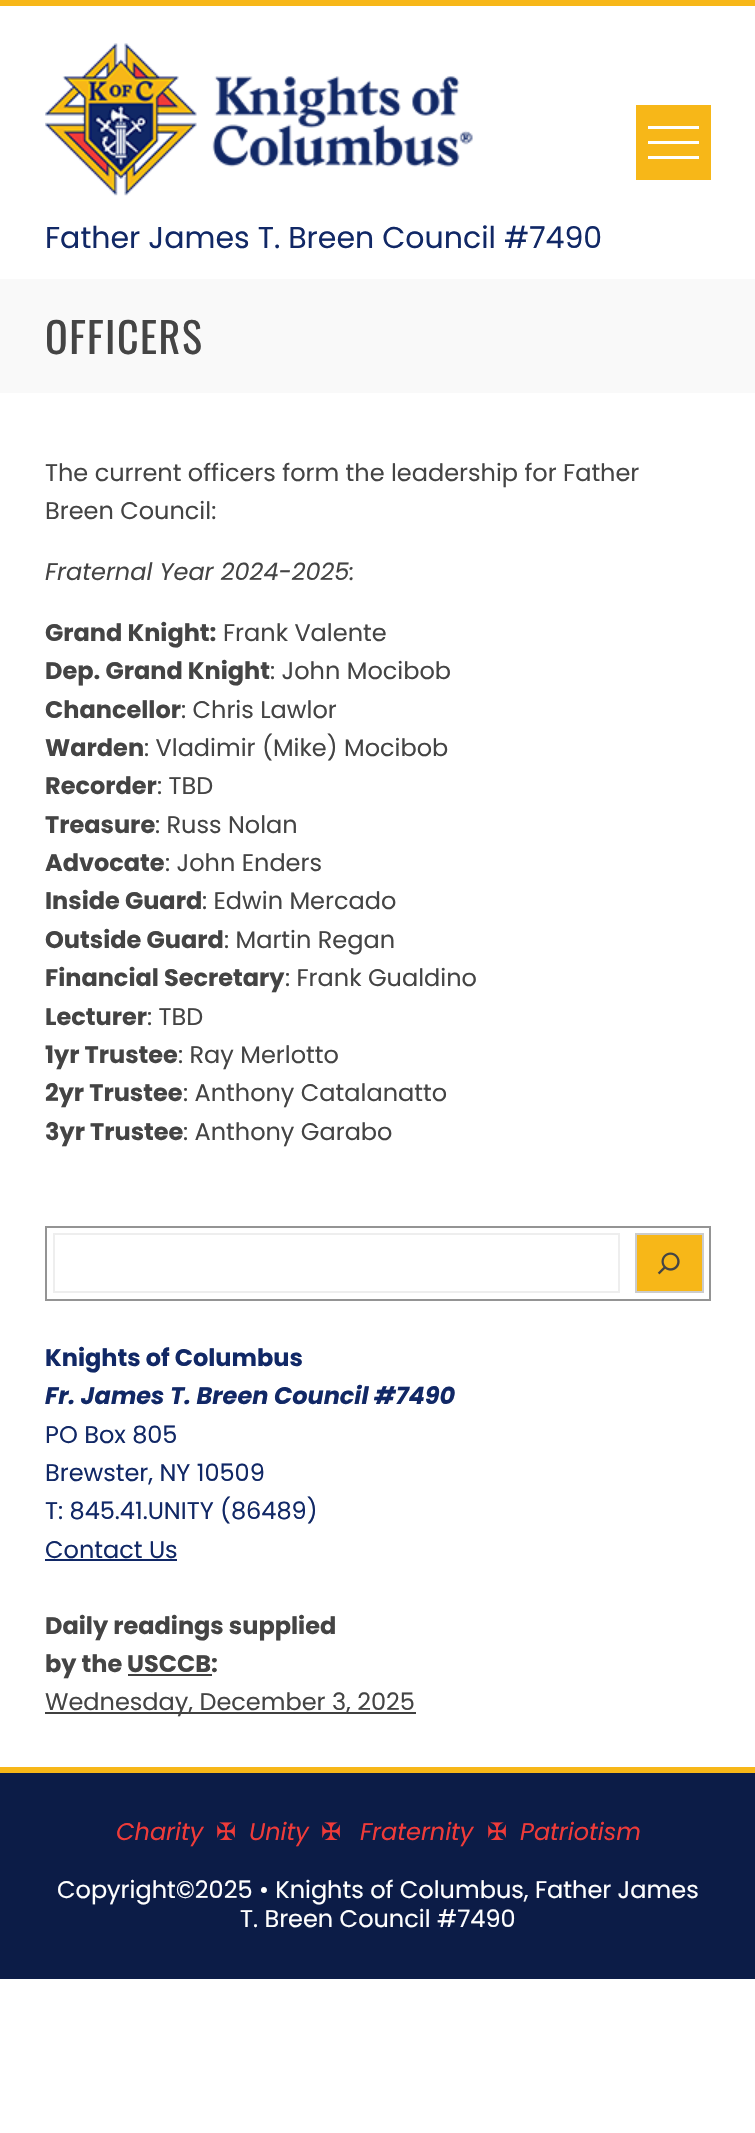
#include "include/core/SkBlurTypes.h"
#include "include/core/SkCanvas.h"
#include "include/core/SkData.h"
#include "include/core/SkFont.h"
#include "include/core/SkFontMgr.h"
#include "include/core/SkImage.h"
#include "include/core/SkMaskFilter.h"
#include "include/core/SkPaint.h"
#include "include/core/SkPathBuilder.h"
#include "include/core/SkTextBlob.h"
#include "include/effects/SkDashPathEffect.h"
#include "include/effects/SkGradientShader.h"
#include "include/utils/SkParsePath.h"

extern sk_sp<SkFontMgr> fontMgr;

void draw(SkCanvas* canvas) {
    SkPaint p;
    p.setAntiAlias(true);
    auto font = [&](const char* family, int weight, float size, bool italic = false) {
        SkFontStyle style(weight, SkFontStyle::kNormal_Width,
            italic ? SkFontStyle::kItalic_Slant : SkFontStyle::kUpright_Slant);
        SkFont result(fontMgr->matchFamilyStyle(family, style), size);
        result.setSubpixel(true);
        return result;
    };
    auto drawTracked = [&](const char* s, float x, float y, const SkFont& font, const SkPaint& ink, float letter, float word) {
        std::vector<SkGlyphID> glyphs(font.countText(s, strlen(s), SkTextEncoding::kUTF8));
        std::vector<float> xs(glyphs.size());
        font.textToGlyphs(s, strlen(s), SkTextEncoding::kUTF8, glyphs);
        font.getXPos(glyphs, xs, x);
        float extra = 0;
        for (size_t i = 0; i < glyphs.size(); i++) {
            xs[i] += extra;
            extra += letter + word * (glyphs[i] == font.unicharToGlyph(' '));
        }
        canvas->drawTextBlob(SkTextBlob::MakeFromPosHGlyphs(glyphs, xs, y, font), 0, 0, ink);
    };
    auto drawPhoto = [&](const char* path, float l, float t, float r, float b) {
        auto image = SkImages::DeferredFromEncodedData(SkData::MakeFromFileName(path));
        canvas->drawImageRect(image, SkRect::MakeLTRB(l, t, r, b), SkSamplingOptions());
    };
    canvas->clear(0xFFFFFFFF);
    {
        const struct { float l, t, r, b; SkColor color; } items[] = {
            {0, 0, 755, 6, 0xFFF7B718},
            {636, 105, 711, 180, 0xFFF7B718},
            {648, 126, 699, 129, 0xFFFFFFFF},
            {648, 156, 699, 159, 0xFFFFFFFF},
            {648, 141, 699, 144, 0xFFFFFFFF},
        };
        for (auto [l, t, r, b, color] : items) {
            p.setColor(color);
            canvas->drawRect(SkRect::MakeLTRB(l, t, r, b), p);
        }
    }
    drawPhoto("media/1.png", 45, 43, 473, 196);
    auto font1 = font("Poppins", 400, 30);
    p.setColor(0xFF112866);
    canvas->drawString("Father James T. Breen Council #7490", 45, 248, font1, p);
    p.setColor(0xFFF9F9F9);
    canvas->drawRect(SkRect::MakeLTRB(0, 279, 755, 393), p);
    auto font2 = font("Oswald", 400, 42);
    p.setColor(0xFF444444);
    drawTracked("OFFICERS", 45, 354, font2, p, 1.5f, 0);
    auto font3 = font("Poppins", 400, 24);
    canvas->drawString("The current officers form the leadership for Father", 45, 481, font3, p);
    canvas->drawString("Breen Council:", 45, 519, font3, p);
    auto font4 = font("Poppins", 400, 24, true);
    canvas->drawString("Fraternal Year 2024-2025:", 45, 580, font4, p);
    auto font5 = font("Poppins", 700, 24);
    canvas->drawString("Grand Knight:", 45, 641, font5, p);
    canvas->drawString("Frank Valente", 223, 641, font3, p);
    canvas->drawString("Dep. Grand Knight", 45, 679, font5, p);
    canvas->drawString(": John Mocibob", 270, 679, font3, p);
    canvas->drawString("Chancellor", 45, 718, font5, p);
    canvas->drawString(": Chris Lawlor", 181, 718, font3, p);
    canvas->drawString("Warden", 45, 756, font5, p);
    canvas->drawString(": Vladimir (Mike) Mocibob", 144, 756, font3, p);
    canvas->drawString("Recorder", 45, 794, font5, p);
    canvas->drawString(": TBD", 157, 794, font3, p);
    canvas->drawString("Treasure", 45, 833, font5, p);
    canvas->drawString(": Russ Nolan", 155, 833, font3, p);
    canvas->drawString("Advocate", 45, 871, font5, p);
    canvas->drawString(": John Enders", 165, 871, font3, p);
    canvas->drawString("Inside Guard", 45, 909, font5, p);
    canvas->drawString(": Edwin Mercado", 202, 909, font3, p);
    canvas->drawString("Outside Guard", 45, 948, font5, p);
    canvas->drawString(": Martin Regan", 224, 948, font3, p);
    canvas->drawString("Financial Secretary", 45, 986, font5, p);
    canvas->drawString(": Frank Gualdino", 285, 986, font3, p);
    canvas->drawString("Lecturer", 45, 1025, font5, p);
    canvas->drawString(": TBD", 147, 1025, font3, p);
    canvas->drawString("1yr Trustee", 45, 1063, font5, p);
    canvas->drawString(": Ray Merlotto", 178, 1063, font3, p);
    canvas->drawString("2yr Trustee", 45, 1101, font5, p);
    canvas->drawString(": Anthony Catalanatto", 183, 1101, font3, p);
    canvas->drawString("3yr Trustee", 45, 1140, font5, p);
    canvas->drawString(": Anthony Garabo", 183, 1140, font3, p);
    p.setStyle(SkPaint::kStroke_Style);
    p.setStrokeWidth(2);
    p.setColor(0xFF949494);
    canvas->drawRect(SkRect::MakeLTRB(46, 1227, 710, 1300), p);
    p.setColor(0xFFEEEEEE);
    canvas->drawRect(SkRect::MakeLTRB(54, 1234, 619, 1292), p);
    p.setStyle(SkPaint::kFill_Style);
    p.setColor(0xFFF7B718);
    canvas->drawRect(SkRect::MakeLTRB(636, 1234, 703, 1292), p);
    p.setStyle(SkPaint::kStroke_Style);
    p.setColor(0xFFCCCCCC);
    canvas->drawRect(SkRect::MakeLTRB(636, 1234, 703, 1292), p);
    drawPhoto("media/2.png", 657, 1252, 680, 1275);
    p.setStyle(SkPaint::kFill_Style);
    p.setColor(0xFF112866);
    canvas->drawString("Knights of Columbus", 45, 1366, font5, p);
    auto font6 = font("Poppins", 700, 24, true);
    canvas->drawString("Fr. James T. Breen Council #7490", 45, 1404, font6, p);
    {
        const struct { const char* s; float x, y; } items[] = {
            {"PO Box 805", 45, 1443},
            {"Brewster, NY 10509", 45, 1481},
            {"T: 845.41.UNITY (86489)", 45, 1519},
            {"Contact Us", 45, 1558},
        };
        for (auto [s, x, y] : items) {
            canvas->drawString(s, x, y, font3, p);
        }
    }
    canvas->drawRect(SkRect::MakeLTRB(45, 1559, 177, 1561), p);
    p.setColor(0xFF444444);
    {
        const struct { const char* s; float x, y; } items[] = {
            {"Daily readings supplied", 45, 1634},
            {"by the", 45, 1672},
            {"USCCB", 127, 1672},
            {":", 211, 1672},
        };
        for (auto [s, x, y] : items) {
            canvas->drawString(s, x, y, font5, p);
        }
    }
    p.setColor(0xFF404040);
    canvas->drawRect(SkRect::MakeLTRB(128, 1674, 212, 1676), p);
    canvas->drawRect(SkRect::MakeLTRB(45, 1712, 416, 1714), p);
    p.setColor(0xFF444444);
    canvas->drawString("Wednesday, December 3, 2025", 45, 1710, font3, p);
    p.setColor(0xFFF7B718);
    canvas->drawRect(SkRect::MakeLTRB(0, 1767, 755, 1773), p);
    p.setColor(0xFF0C1C47);
    canvas->drawRect(SkRect::MakeLTRB(0, 1773, 755, 1979), p);
    p.setColor(0xFFEF3B39);
    canvas->drawString("Charity", 116, 1840, font4, p);
    auto font7 = font("DejaVu Sans", 400, 24);
    canvas->drawString("✠", 216, 1840, font7, p);
    canvas->drawString("Unity", 249, 1840, font4, p);
    canvas->drawString("✠", 321, 1840, font7, p);
    canvas->drawString("Fraternity", 360, 1840, font4, p);
    canvas->drawString("✠", 487, 1840, font7, p);
    canvas->drawString("Patriotism", 520, 1840, font4, p);
    p.setColor(0xFFFFFFFF);
    canvas->drawString("Copyright©2025 • Knights of Columbus, Father James", 57, 1898, font3, p);
    canvas->drawString("T. Breen Council #7490", 240, 1927, font3, p);
}
